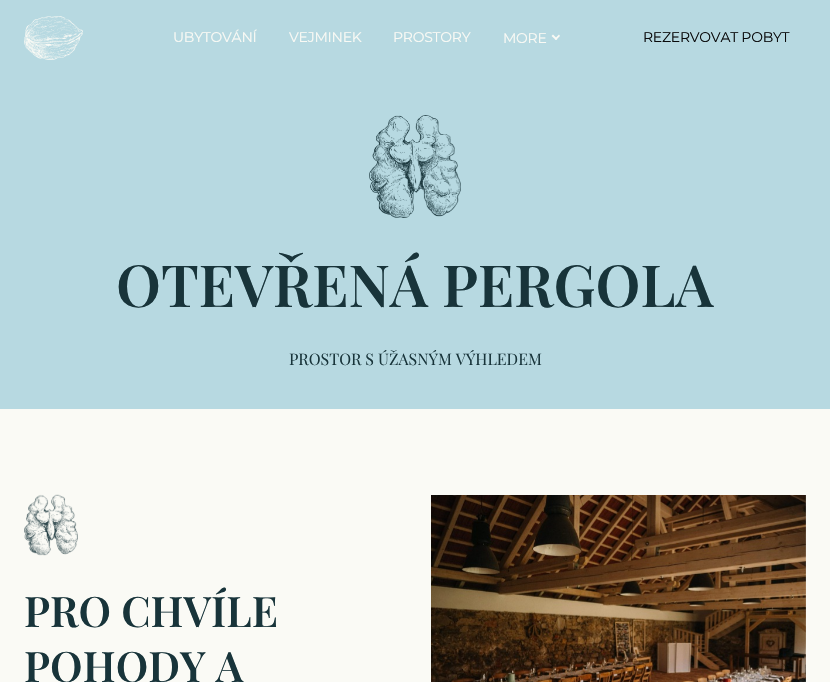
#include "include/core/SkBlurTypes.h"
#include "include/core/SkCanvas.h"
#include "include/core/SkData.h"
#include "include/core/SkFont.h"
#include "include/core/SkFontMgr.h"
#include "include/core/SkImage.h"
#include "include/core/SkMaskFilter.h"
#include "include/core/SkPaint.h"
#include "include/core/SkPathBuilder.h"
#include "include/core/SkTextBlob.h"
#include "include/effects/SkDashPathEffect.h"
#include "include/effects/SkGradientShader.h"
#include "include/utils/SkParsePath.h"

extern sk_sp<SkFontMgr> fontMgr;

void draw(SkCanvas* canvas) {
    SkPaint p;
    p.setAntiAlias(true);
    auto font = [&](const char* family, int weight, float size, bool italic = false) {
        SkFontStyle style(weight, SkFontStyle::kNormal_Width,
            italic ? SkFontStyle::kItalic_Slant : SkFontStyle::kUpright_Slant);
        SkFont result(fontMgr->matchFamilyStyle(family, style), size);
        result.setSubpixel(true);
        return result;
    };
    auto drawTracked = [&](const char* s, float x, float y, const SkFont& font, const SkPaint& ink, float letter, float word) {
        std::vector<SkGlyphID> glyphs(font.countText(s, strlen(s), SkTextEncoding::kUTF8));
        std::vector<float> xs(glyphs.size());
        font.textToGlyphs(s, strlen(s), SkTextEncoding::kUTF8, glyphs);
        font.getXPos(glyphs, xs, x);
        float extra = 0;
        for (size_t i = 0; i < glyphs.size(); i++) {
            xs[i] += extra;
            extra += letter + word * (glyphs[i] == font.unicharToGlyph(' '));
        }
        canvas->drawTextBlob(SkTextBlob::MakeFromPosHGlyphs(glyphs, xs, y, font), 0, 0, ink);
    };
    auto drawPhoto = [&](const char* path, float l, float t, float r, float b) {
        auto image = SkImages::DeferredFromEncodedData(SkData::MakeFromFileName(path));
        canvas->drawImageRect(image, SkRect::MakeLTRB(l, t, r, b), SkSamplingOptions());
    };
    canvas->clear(0xFFFAFAF5);
    p.setColor(0xFFB7D9E1);
    canvas->drawRect(SkRect::MakeLTRB(0, 0, 830, 409), p);
    drawPhoto("media/1.png", 24, 16, 83, 60);
    auto font1 = font("Montserrat", 400, 14);
    p.setColor(0xFFFAFAF5);
    {
        const struct { const char* s; float x, y; } items[] = {
            {"UBYTOVÁNÍ", 173, 42},
            {"VEJMINEK", 289, 42},
            {"PROSTORY", 393, 42},
            {"MORE", 503, 43},
        };
        for (auto [s, x, y] : items) {
            drawTracked(s, x, y, font1, p, -0.25f, 0);
        }
    }
    canvas->drawPath(SkPathBuilder().moveTo(559, 34.5f).lineTo(560, 36).lineTo(556, 40).lineTo(554.5f, 39).close().detach(), p);
    canvas->drawPath(SkPathBuilder().moveTo(553, 34.5f).lineTo(557.5f, 39).lineTo(556, 40).lineTo(551.5f, 36).close().detach(), p);
    p.setColor(0xFF090A0B);
    drawTracked("REZERVOVAT POBYT", 643, 42, font1, p, -0.25f, 0);
    drawPhoto("media/2.png", 369, 115, 461, 218);
    auto font2 = font("Playfair Display", 600, 58);
    p.setColor(0xFF18343A);
    canvas->drawString("OTEVŘENÁ PERGOLA", 116, 307, font2, p);
    auto font3 = font("Playfair Display", 400, 16);
    canvas->drawString("PROSTOR S ÚŽASNÝM VÝHLEDEM", 289, 365, font3, p);
    drawPhoto("media/3.png", 24, 494, 78, 556);
    auto font4 = font("Playfair Display", 600, 42);
    canvas->drawString("PRO CHVÍLE", 24, 627, font4, p);
    canvas->drawString("POHODY A", 24, 682, font4, p);
    drawPhoto("media/4.png", 431, 495, 806, 682);
}
